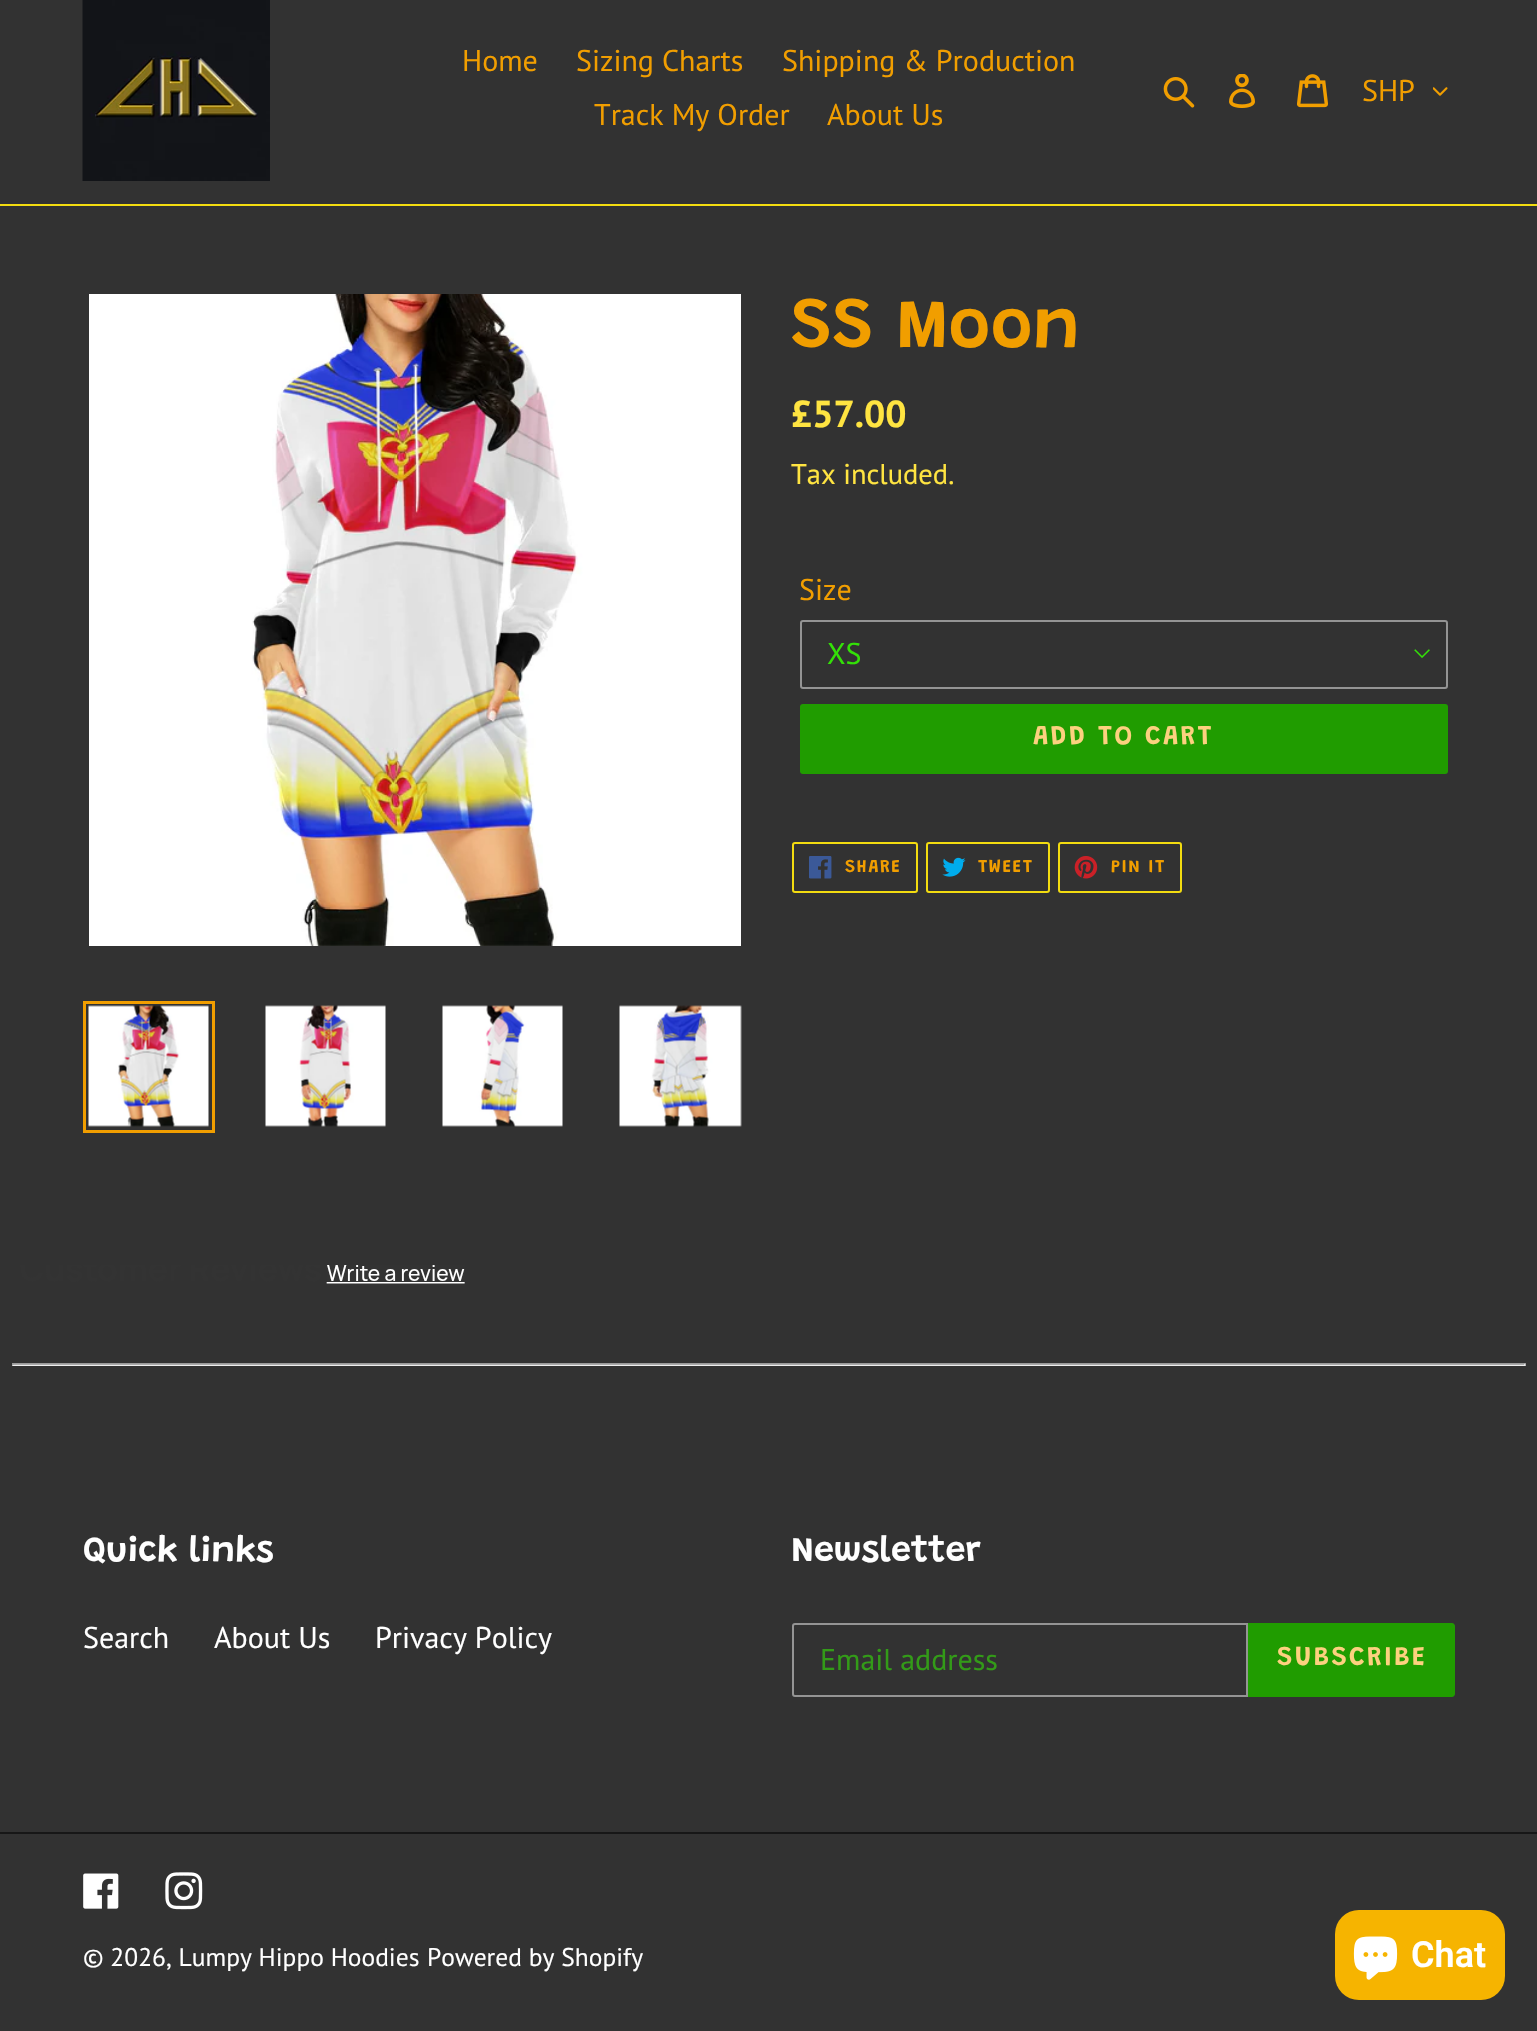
#include "include/core/SkBlurTypes.h"
#include "include/core/SkCanvas.h"
#include "include/core/SkData.h"
#include "include/core/SkFont.h"
#include "include/core/SkFontMgr.h"
#include "include/core/SkImage.h"
#include "include/core/SkMaskFilter.h"
#include "include/core/SkPaint.h"
#include "include/core/SkPathBuilder.h"
#include "include/core/SkTextBlob.h"
#include "include/effects/SkDashPathEffect.h"
#include "include/effects/SkGradientShader.h"
#include "include/utils/SkParsePath.h"

extern sk_sp<SkFontMgr> fontMgr;

void draw(SkCanvas* canvas) {
    SkPaint p;
    p.setAntiAlias(true);
    auto font = [&](const char* family, int weight, float size, bool italic = false) {
        SkFontStyle style(weight, SkFontStyle::kNormal_Width,
            italic ? SkFontStyle::kItalic_Slant : SkFontStyle::kUpright_Slant);
        SkFont result(fontMgr->matchFamilyStyle(family, style), size);
        result.setSubpixel(true);
        return result;
    };
    auto drawTracked = [&](const char* s, float x, float y, const SkFont& font, const SkPaint& ink, float letter, float word) {
        std::vector<SkGlyphID> glyphs(font.countText(s, strlen(s), SkTextEncoding::kUTF8));
        std::vector<float> xs(glyphs.size());
        font.textToGlyphs(s, strlen(s), SkTextEncoding::kUTF8, glyphs);
        font.getXPos(glyphs, xs, x);
        float extra = 0;
        for (size_t i = 0; i < glyphs.size(); i++) {
            xs[i] += extra;
            extra += letter + word * (glyphs[i] == font.unicharToGlyph(' '));
        }
        canvas->drawTextBlob(SkTextBlob::MakeFromPosHGlyphs(glyphs, xs, y, font), 0, 0, ink);
    };
    auto drawPhoto = [&](const char* path, float l, float t, float r, float b) {
        auto image = SkImages::DeferredFromEncodedData(SkData::MakeFromFileName(path));
        canvas->drawImageRect(image, SkRect::MakeLTRB(l, t, r, b), SkSamplingOptions());
    };
    canvas->clear(0xFF323232);
    p.setColor(0xFFF3DC10);
    canvas->drawRect(SkRect::MakeLTRB(0, 204, 1537, 206), p);
    drawPhoto("media/1.png", 82, 0, 270, 181);
    auto font1 = font("PT Sans", 400, 30);
    p.setColor(0xFFF19E00);
    {
        const struct { const char* s; float x, y; } items[] = {
            {"Home", 462, 71},
            {"Sizing Charts", 576, 71},
            {"Shipping & Production", 782, 71},
            {"Track My Order", 594, 125},
            {"About Us", 827, 125},
        };
        for (auto [s, x, y] : items) {
            canvas->drawString(s, x, y, font1, p);
        }
    }
    drawPhoto("media/2.png", 1163, 77, 1195, 108);
    drawPhoto("media/3.png", 1229, 74, 1255, 108);
    drawPhoto("media/4.png", 1297, 74, 1328, 108);
    canvas->drawString("SHP", 1362, 101, font1, p);
    drawPhoto("media/5.png", 1433, 87, 1448, 96);
    drawPhoto("media/6.png", 89, 294, 741, 946);
    p.setStyle(SkPaint::kStroke_Style);
    p.setStrokeWidth(3);
    canvas->drawRect(SkRect::MakeLTRB(84.5f, 1002.5f, 213.5f, 1131.5f), p);
    drawPhoto("media/7.png", 88, 1005, 209, 1127);
    drawPhoto("media/8.png", 265, 1005, 386, 1127);
    drawPhoto("media/9.png", 442, 1005, 563, 1127);
    drawPhoto("media/10.png", 619, 1005, 742, 1127);
    auto font2 = font("Grandstander", 600, 72);
    p.setStyle(SkPaint::kFill_Style);
    canvas->drawString("SS Moon", 791, 347, font2, p);
    auto font3 = font("PT Sans", 700, 37.5f);
    p.setColor(0xFFFFE441);
    canvas->drawString("£57.00", 791, 427, font3, p);
    auto font4 = font("PT Sans", 400, 28.5f);
    canvas->drawString("Tax included.", 791, 484, font4, p);
    p.setColor(0xFFF19E00);
    canvas->drawString("Size", 799, 600, font1, p);
    drawPhoto("media/11.png", 1414, 649, 1430, 658);
    p.setStyle(SkPaint::kStroke_Style);
    p.setStrokeWidth(2);
    p.setColor(0xFF949494);
    canvas->drawRoundRect(SkRect::MakeLTRB(801, 621, 1447, 688), 2, 2, p);
    p.setStyle(SkPaint::kFill_Style);
    p.setColor(0xFF33E107);
    canvas->drawString("XS", 827, 664, font1, p);
    p.setColor(0xFF209C00);
    canvas->drawRoundRect(SkRect::MakeLTRB(800, 704, 1448, 774), 3, 3, p);
    auto font5 = font("Grandstander", 600, 27);
    p.setColor(0xFFFCD17F);
    drawTracked("ADD TO CART", 1033, 744, font5, p, 2.25f, 0);
    p.setStyle(SkPaint::kStroke_Style);
    p.setColor(0xFFF3DC10);
    canvas->drawRoundRect(SkRect::MakeLTRB(793, 843, 917, 892), 2, 2, p);
    drawPhoto("media/12.png", 809, 856, 832, 879);
    auto font6 = font("Grandstander", 600, 18);
    p.setStyle(SkPaint::kFill_Style);
    p.setColor(0xFFF19E00);
    drawTracked("SHARE", 845, 872, font6, p, 1.5f, 0);
    p.setStyle(SkPaint::kStroke_Style);
    p.setColor(0xFFF3DC10);
    canvas->drawRoundRect(SkRect::MakeLTRB(927, 843, 1049, 892), 2, 2, p);
    drawPhoto("media/13.png", 942, 857, 966, 877);
    p.setStyle(SkPaint::kFill_Style);
    p.setColor(0xFFF19E00);
    drawTracked("TWEET", 978, 872, font6, p, 1.5f, 0);
    p.setStyle(SkPaint::kStroke_Style);
    p.setColor(0xFFF3DC10);
    canvas->drawRoundRect(SkRect::MakeLTRB(1059, 843, 1181, 892), 2, 2, p);
    drawPhoto("media/14.png", 1074, 856, 1098, 879);
    p.setStyle(SkPaint::kFill_Style);
    p.setColor(0xFFF19E00);
    drawTracked("PIN IT", 1111, 872, font6, p, 1.5f, 0);
    drawPhoto("media/15.png", 12, 1265, 1526, 1366);
    auto font7 = font("Grandstander", 600, 36);
    p.setColor(0xFFFFFFFF);
    canvas->drawString("Quick links", 83, 1561, font7, p);
    {
        const struct { const char* s; float x, y; } items[] = {
            {"Search", 83, 1648},
            {"About Us", 214, 1648},
            {"Privacy Policy", 375, 1648},
        };
        for (auto [s, x, y] : items) {
            canvas->drawString(s, x, y, font1, p);
        }
    }
    canvas->drawString("Newsletter", 791, 1561, font7, p);
    p.setStyle(SkPaint::kStroke_Style);
    p.setColor(0xFF949494);
    canvas->drawPath(SkPathBuilder().moveTo(795, 1624).lineTo(1247, 1624).lineTo(1247, 1696).lineTo(795, 1696).cubicTo(794, 1696, 793, 1695, 793, 1694).lineTo(793, 1626).cubicTo(793, 1625, 794, 1624, 795, 1624).close().detach(), p);
    p.setStyle(SkPaint::kFill_Style);
    p.setColor(0xFF339B18);
    canvas->drawString("Email address", 820, 1670, font1, p);
    p.setColor(0xFF209C00);
    canvas->drawPath(SkPathBuilder().moveTo(1248, 1623).lineTo(1452, 1623).cubicTo(1453.5f, 1623, 1455, 1624.5f, 1455, 1626).lineTo(1455, 1694).cubicTo(1455, 1695.5f, 1453.5f, 1697, 1452, 1697).lineTo(1248, 1697).close().detach(), p);
    p.setColor(0xFFFCD17F);
    drawTracked("SUBSCRIBE", 1277, 1665, font5, p, 2.25f, 0);
    p.setColor(0xFF171717);
    canvas->drawRect(SkRect::MakeLTRB(0, 1832, 1537, 1834), p);
    drawPhoto("media/16.png", 83, 1873, 119, 1909);
    drawPhoto("media/17.png", 165, 1872, 203, 1910);
    auto font8 = font("PT Sans", 400, 25.5f);
    p.setColor(0xFFFFFFFF);
    canvas->drawString("© 2026, Lumpy Hippo Hoodies", 83, 1966, font8, p);
    canvas->drawString("Powered by Shopify", 427, 1966, font8, p);
    p.setColor(0xFFF6B400);
    canvas->drawRoundRect(SkRect::MakeLTRB(1335, 1910, 1505, 2000), 24, 24, p);
    drawPhoto("media/18.png", 1353, 1936, 1398, 1980);
    auto font9 = font("Roboto", 600, 36);
    p.setColor(0xFFFFFFFF);
    canvas->drawString("Chat", 1411, 1967, font9, p);
}
